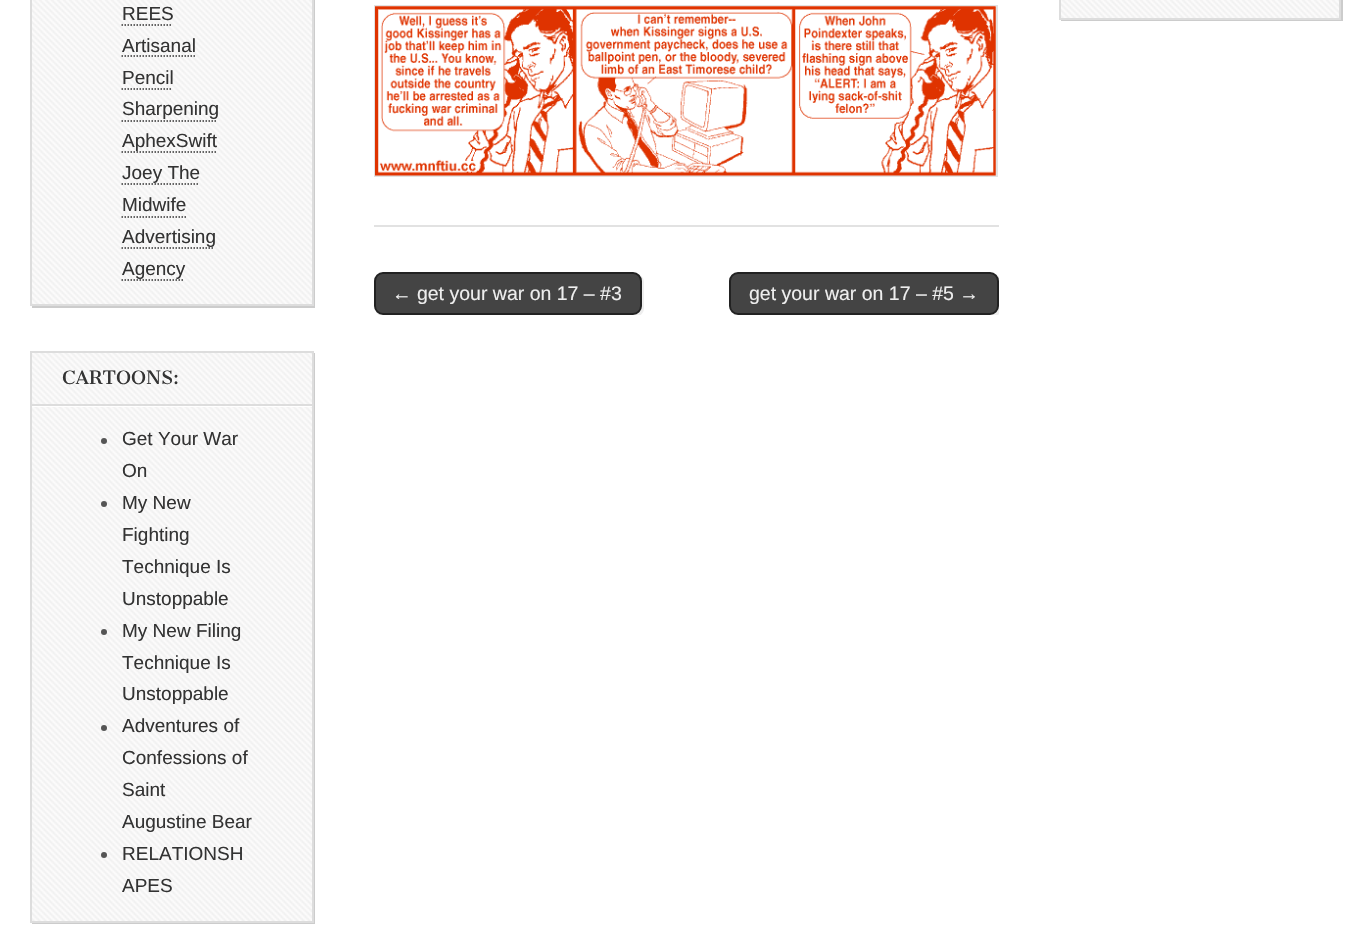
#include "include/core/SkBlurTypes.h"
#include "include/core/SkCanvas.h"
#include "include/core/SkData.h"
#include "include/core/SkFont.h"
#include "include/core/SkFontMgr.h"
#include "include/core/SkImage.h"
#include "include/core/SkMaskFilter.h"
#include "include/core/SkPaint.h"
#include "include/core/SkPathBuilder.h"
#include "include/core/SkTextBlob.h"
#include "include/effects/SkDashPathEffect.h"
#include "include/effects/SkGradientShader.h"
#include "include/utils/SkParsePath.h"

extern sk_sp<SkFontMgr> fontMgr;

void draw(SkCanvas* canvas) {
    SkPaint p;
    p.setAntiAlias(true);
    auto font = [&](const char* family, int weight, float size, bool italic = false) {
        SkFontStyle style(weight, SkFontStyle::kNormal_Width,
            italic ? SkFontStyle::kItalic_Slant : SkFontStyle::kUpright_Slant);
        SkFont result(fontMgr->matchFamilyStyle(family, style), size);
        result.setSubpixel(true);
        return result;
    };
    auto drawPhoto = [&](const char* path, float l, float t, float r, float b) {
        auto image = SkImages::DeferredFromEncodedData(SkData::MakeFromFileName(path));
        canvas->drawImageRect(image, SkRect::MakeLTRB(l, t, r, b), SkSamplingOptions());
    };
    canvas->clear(0xFFFFFFFF);
    p.setColor(0xFFCCCCCC);
    canvas->drawPath(SkPathBuilder().moveTo(32, 306).lineTo(32, 308).lineTo(315, 308).lineTo(315, -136).lineTo(314, -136).lineTo(314, 306).close().detach(), p);
    drawPhoto("media/1.png", 32, 0, 312, 304);
    p.setStyle(SkPaint::kStroke_Style);
    p.setStrokeWidth(2);
    p.setColor(0xFFDDDDDD);
    canvas->drawRect(SkRect::MakeLTRB(31, -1, 313, 305), p);
    auto font1 = font("Liberation Sans", 400, 19);
    p.setStyle(SkPaint::kFill_Style);
    p.setColor(0xFF333333);
    canvas->drawString("REES", 122, 20, font1, p);
    p.setStyle(SkPaint::kStroke_Style);
    p.setStrokeWidth(1.5f);
    p.setPathEffect(SkDashPathEffect::Make({{1.5f, 1.5f}}, 0));
    canvas->drawPath(SkPathBuilder().moveTo(121.5f, 25).lineTo(172.5f, 25).detach(), p);
    p.setPathEffect(nullptr);
    p.setStyle(SkPaint::kFill_Style);
    canvas->drawString("Artisanal", 122, 52, font1, p);
    p.setStyle(SkPaint::kStroke_Style);
    p.setPathEffect(SkDashPathEffect::Make({{1.5f, 1.5f}}, 0));
    canvas->drawPath(SkPathBuilder().moveTo(121.5f, 56).lineTo(195, 56).detach(), p);
    p.setPathEffect(nullptr);
    p.setStyle(SkPaint::kFill_Style);
    canvas->drawString("Pencil", 122, 84, font1, p);
    p.setStyle(SkPaint::kStroke_Style);
    p.setPathEffect(SkDashPathEffect::Make({{1.5f, 1.5f}}, 0));
    canvas->drawPath(SkPathBuilder().moveTo(121.5f, 89).lineTo(172.5f, 89).detach(), p);
    p.setPathEffect(nullptr);
    p.setStyle(SkPaint::kFill_Style);
    canvas->drawString("Sharpening", 122, 115, font1, p);
    p.setStyle(SkPaint::kStroke_Style);
    p.setPathEffect(SkDashPathEffect::Make({{1.5f, 1.5f}}, 0));
    canvas->drawPath(SkPathBuilder().moveTo(121.5f, 121).lineTo(217.5f, 121).detach(), p);
    p.setPathEffect(nullptr);
    p.setStyle(SkPaint::kFill_Style);
    canvas->drawString("AphexSwift", 122, 147, font1, p);
    p.setStyle(SkPaint::kStroke_Style);
    p.setPathEffect(SkDashPathEffect::Make({{1.5f, 1.5f}}, 0));
    canvas->drawPath(SkPathBuilder().moveTo(121.5f, 152).lineTo(216, 152).detach(), p);
    p.setPathEffect(nullptr);
    p.setStyle(SkPaint::kFill_Style);
    canvas->drawString("Joey The", 122, 179, font1, p);
    p.setStyle(SkPaint::kStroke_Style);
    p.setPathEffect(SkDashPathEffect::Make({{1.5f, 1.5f}}, 0));
    canvas->drawPath(SkPathBuilder().moveTo(121.5f, 184).lineTo(199.5f, 184).detach(), p);
    p.setPathEffect(nullptr);
    p.setStyle(SkPaint::kFill_Style);
    canvas->drawString("Midwife", 122, 211, font1, p);
    p.setStyle(SkPaint::kStroke_Style);
    p.setPathEffect(SkDashPathEffect::Make({{1.5f, 1.5f}}, 0));
    canvas->drawPath(SkPathBuilder().moveTo(121.5f, 217).lineTo(186, 217).detach(), p);
    p.setPathEffect(nullptr);
    p.setStyle(SkPaint::kFill_Style);
    canvas->drawString("Advertising", 122, 243, font1, p);
    p.setStyle(SkPaint::kStroke_Style);
    p.setPathEffect(SkDashPathEffect::Make({{1.5f, 1.5f}}, 0));
    canvas->drawPath(SkPathBuilder().moveTo(121.5f, 248).lineTo(214.5f, 248).detach(), p);
    p.setPathEffect(nullptr);
    p.setStyle(SkPaint::kFill_Style);
    canvas->drawString("Agency", 122, 275, font1, p);
    p.setStyle(SkPaint::kStroke_Style);
    p.setPathEffect(SkDashPathEffect::Make({{1.5f, 1.5f}}, 0));
    canvas->drawPath(SkPathBuilder().moveTo(121.5f, 280).lineTo(184.5f, 280).detach(), p);
    p.setPathEffect(nullptr);
    p.setStyle(SkPaint::kFill_Style);
    p.setColor(0xFFCCCCCC);
    canvas->drawPath(SkPathBuilder().moveTo(32, 922).lineTo(32, 924).lineTo(315, 924).lineTo(315, 353).lineTo(314, 353).lineTo(314, 922).close().detach(), p);
    drawPhoto("media/2.png", 32, 353, 312, 921);
    p.setStyle(SkPaint::kStroke_Style);
    p.setStrokeWidth(2);
    p.setColor(0xFFDDDDDD);
    canvas->drawRect(SkRect::MakeLTRB(31, 352, 313, 922), p);
    p.setStyle(SkPaint::kFill_Style);
    p.setColor(0xFFFFFFFF);
    canvas->drawRect(SkRect::MakeLTRB(32, 406, 312, 407), p);
    p.setColor(0xFFDDDDDD);
    canvas->drawRect(SkRect::MakeLTRB(32, 404, 312, 406), p);
    auto font2 = font("Cantata One", 400, 18);
    p.setColor(0xFF333333);
    canvas->drawString("CARTOONS:", 62, 384, font2, p);
    p.setColor(0xFF555555);
    canvas->drawCircle(104, 441, 3, p);
    p.setColor(0xFF333333);
    canvas->drawString("Get Your War", 122, 445, font1, p);
    canvas->drawString("On", 122, 477, font1, p);
    p.setColor(0xFF555555);
    canvas->drawCircle(104, 504, 3, p);
    p.setColor(0xFF333333);
    {
        const struct { const char* s; float x, y; } items[] = {
            {"My New", 122, 509},
            {"Fighting", 122, 541},
            {"Technique Is", 122, 573},
            {"Unstoppable", 122, 605},
        };
        for (auto [s, x, y] : items) {
            canvas->drawString(s, x, y, font1, p);
        }
    }
    p.setColor(0xFF555555);
    canvas->drawCircle(104, 632, 3, p);
    p.setColor(0xFF333333);
    {
        const struct { const char* s; float x, y; } items[] = {
            {"My New Filing", 122, 637},
            {"Technique Is", 122, 669},
            {"Unstoppable", 122, 700},
        };
        for (auto [s, x, y] : items) {
            canvas->drawString(s, x, y, font1, p);
        }
    }
    p.setColor(0xFF555555);
    canvas->drawCircle(104, 728, 3, p);
    p.setColor(0xFF333333);
    {
        const struct { const char* s; float x, y; } items[] = {
            {"Adventures of", 122, 732},
            {"Confessions of", 122, 764},
            {"Saint", 122, 796},
            {"Augustine Bear", 122, 828},
        };
        for (auto [s, x, y] : items) {
            canvas->drawString(s, x, y, font1, p);
        }
    }
    p.setColor(0xFF555555);
    canvas->drawCircle(104, 855, 3, p);
    p.setColor(0xFF333333);
    canvas->drawString("RELATIONSH", 122, 860, font1, p);
    canvas->drawString("APES", 122, 892, font1, p);
    p.setColor(0xFFE2E2E2);
    canvas->drawRect(SkRect::MakeLTRB(374, 225, 999, 227), p);
    p.setStyle(SkPaint::kStroke_Style);
    canvas->drawRect(SkRect::MakeLTRB(375, 6, 997, 176), p);
    drawPhoto("media/3.png", 375, 6, 996, 176);
    canvas->save();
    canvas->clipRect(SkRect::MakeLTRB(374, 272, 999, 315));
    p.setStyle(SkPaint::kFill_Style);
    p.setColor(0xFFEEEEEE);
    canvas->drawPath(SkPathBuilder().moveTo(376, 312).cubicTo(378, 315, 381, 317, 384, 317).lineTo(635, 317).cubicTo(640, 317, 644, 313, 644, 308).lineTo(644, 282).cubicTo(644, 279, 642, 276, 639, 274).cubicTo(641, 276, 642, 278, 642, 280).lineTo(642, 306).cubicTo(642, 311, 638, 315, 633, 315).lineTo(382, 315).cubicTo(380, 315, 378, 314, 376, 312).close().detach(), p);
    canvas->restore();
    p.setColor(0xFF444444);
    canvas->drawRoundRect(SkRect::MakeLTRB(375, 273, 641, 314), 8, 8, p);
    p.setStyle(SkPaint::kStroke_Style);
    p.setColor(0xFF222222);
    canvas->drawRoundRect(SkRect::MakeLTRB(375, 273, 641, 314), 8, 8, p);
    auto font3 = font("Liberation Sans", 400, 19.5f);
    p.setStyle(SkPaint::kFill_Style);
    p.setColor(0xFFEEEEEE);
    canvas->drawString("← get your war on 17 – #3", 392, 300, font3, p);
    canvas->save();
    canvas->clipRect(SkRect::MakeLTRB(374, 272, 999, 315));
    canvas->drawPath(SkPathBuilder().moveTo(733, 313).cubicTo(734, 315, 736, 317, 739, 317).lineTo(992, 317).cubicTo(1004, 317, 1001, 302, 1001, 295).cubicTo(1001, 289, 1003, 278, 996, 274).cubicTo(998, 276, 999, 278, 999, 280).lineTo(999, 306).cubicTo(999, 311, 995, 315, 990, 315).lineTo(738, 315).cubicTo(736, 315, 734, 314, 733, 313).close().detach(), p);
    canvas->restore();
    p.setColor(0xFF444444);
    canvas->drawRoundRect(SkRect::MakeLTRB(730, 273, 998, 314), 8, 8, p);
    p.setStyle(SkPaint::kStroke_Style);
    p.setColor(0xFF222222);
    canvas->drawRoundRect(SkRect::MakeLTRB(730, 273, 998, 314), 8, 8, p);
    p.setStyle(SkPaint::kFill_Style);
    p.setColor(0xFFEEEEEE);
    canvas->drawString("get your war on 17 – #5 →", 749, 300, font3, p);
    p.setColor(0xFFCCCCCC);
    canvas->drawPath(SkPathBuilder().moveTo(1061, 20).lineTo(1061, 21).lineTo(1343, 21).lineTo(1343, -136).lineTo(1341, -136).lineTo(1341, 20).close().detach(), p);
    drawPhoto("media/4.png", 1061, 0, 1339, 18);
    p.setStyle(SkPaint::kStroke_Style);
    p.setColor(0xFFDDDDDD);
    canvas->drawRect(SkRect::MakeLTRB(1060, -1, 1340, 19), p);
}
